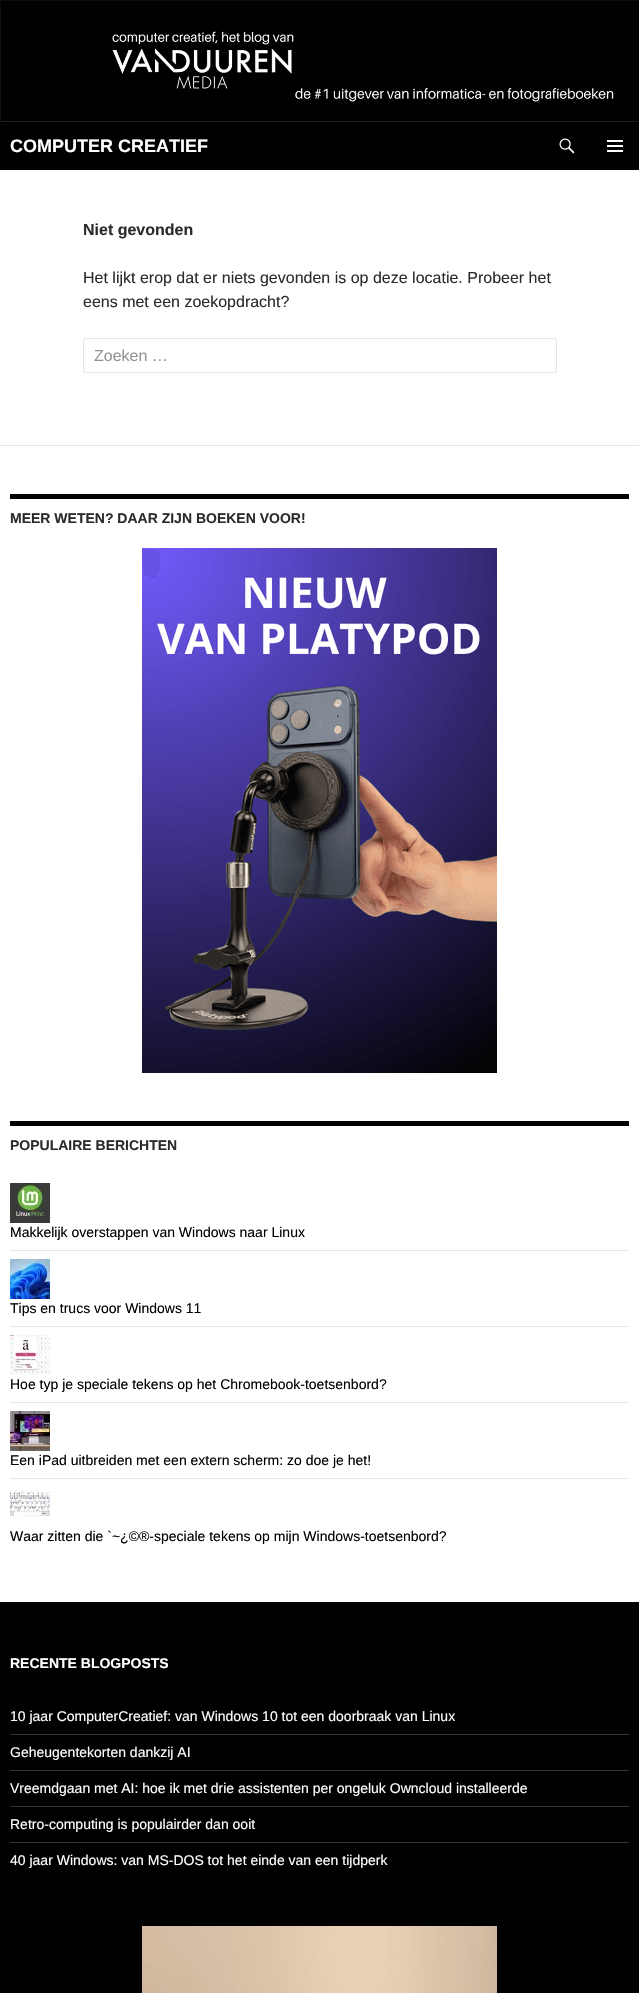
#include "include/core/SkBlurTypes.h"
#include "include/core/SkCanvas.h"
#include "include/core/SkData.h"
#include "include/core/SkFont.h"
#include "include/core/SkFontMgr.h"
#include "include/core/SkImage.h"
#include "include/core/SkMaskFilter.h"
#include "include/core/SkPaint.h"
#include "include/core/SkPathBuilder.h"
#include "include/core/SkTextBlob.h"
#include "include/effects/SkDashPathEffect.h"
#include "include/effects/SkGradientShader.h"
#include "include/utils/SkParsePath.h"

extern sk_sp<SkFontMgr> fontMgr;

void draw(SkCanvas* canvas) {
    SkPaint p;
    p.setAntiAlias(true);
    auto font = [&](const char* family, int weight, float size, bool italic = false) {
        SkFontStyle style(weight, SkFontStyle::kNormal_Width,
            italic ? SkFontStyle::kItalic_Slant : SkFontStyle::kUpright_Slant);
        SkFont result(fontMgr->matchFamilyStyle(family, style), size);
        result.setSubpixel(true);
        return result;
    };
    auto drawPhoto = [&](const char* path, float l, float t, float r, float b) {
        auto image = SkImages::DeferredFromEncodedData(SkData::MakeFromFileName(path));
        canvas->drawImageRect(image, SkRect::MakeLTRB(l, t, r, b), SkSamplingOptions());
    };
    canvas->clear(0xFFFFFFFF);
    drawPhoto("media/1.png", 0, 0, 639, 122);
    p.setColor(0xFF000000);
    canvas->drawRect(SkRect::MakeLTRB(0, 122, 639, 170), p);
    auto font1 = font("Liberation Sans", 700, 18);
    p.setColor(0xFFFFFFFF);
    canvas->drawString("COMPUTER CREATIEF", 10, 152, font1, p);
    drawPhoto("media/2.png", 559, 138, 575, 154);
    drawPhoto("media/3.png", 607, 140, 623, 152);
    auto font2 = font("Liberation Sans", 700, 16);
    p.setColor(0xFF2B2B2B);
    canvas->drawString("Niet gevonden", 83, 235, font2, p);
    auto font3 = font("Liberation Sans", 400, 16);
    canvas->drawString("Het lijkt erop dat er niets gevonden is op deze locatie. Probeer het", 83, 283, font3, p);
    canvas->drawString("eens met een zoekopdracht?", 83, 307, font3, p);
    p.setStyle(SkPaint::kStroke_Style);
    p.setStrokeWidth(1);
    p.setColor(0xFFE6E6E6);
    canvas->drawRoundRect(SkRect::MakeLTRB(83.5f, 338.5f, 556.5f, 372.5f), 1.5f, 1.5f, p);
    p.setStyle(SkPaint::kFill_Style);
    p.setColor(0xFF939393);
    canvas->drawString("Zoeken …", 94, 361, font3, p);
    p.setColor(0xFFE6E6E6);
    canvas->drawRect(SkRect::MakeLTRB(0, 445, 639, 446), p);
    p.setColor(0xFF000000);
    canvas->drawRect(SkRect::MakeLTRB(10, 494, 629, 499), p);
    auto font4 = font("Liberation Sans", 700, 14);
    p.setColor(0xFF2B2B2B);
    canvas->drawString("MEER WETEN? DAAR ZIJN BOEKEN VOOR!", 10, 523, font4, p);
    drawPhoto("media/4.png", 142, 548, 497, 1073);
    p.setColor(0xFF000000);
    canvas->drawRect(SkRect::MakeLTRB(10, 1121, 629, 1126), p);
    p.setColor(0xFF2B2B2B);
    canvas->drawString("POPULAIRE BERICHTEN", 10, 1150, font4, p);
    drawPhoto("media/5.png", 10, 1183, 50, 1223);
    auto font5 = font("Liberation Sans", 400, 14);
    p.setColor(0xFF000000);
    canvas->drawString("Makkelijk overstappen van Windows naar Linux", 10, 1237, font5, p);
    p.setColor(0xFFE6E6E6);
    canvas->drawRect(SkRect::MakeLTRB(10, 1250, 629, 1251), p);
    drawPhoto("media/6.png", 10, 1259, 50, 1299);
    p.setColor(0xFF000000);
    canvas->drawString("Tips en trucs voor Windows 11", 10, 1313, font5, p);
    p.setColor(0xFFE6E6E6);
    canvas->drawRect(SkRect::MakeLTRB(10, 1326, 629, 1327), p);
    drawPhoto("media/7.png", 10, 1335, 50, 1375);
    p.setColor(0xFF000000);
    canvas->drawString("Hoe typ je speciale tekens op het Chromebook-toetsenbord?", 10, 1389, font5, p);
    p.setColor(0xFFE6E6E6);
    canvas->drawRect(SkRect::MakeLTRB(10, 1402, 629, 1403), p);
    drawPhoto("media/8.png", 10, 1411, 50, 1451);
    p.setColor(0xFF000000);
    canvas->drawString("Een iPad uitbreiden met een extern scherm: zo doe je het!", 10, 1465, font5, p);
    p.setColor(0xFFE6E6E6);
    canvas->drawRect(SkRect::MakeLTRB(10, 1478, 629, 1479), p);
    drawPhoto("media/9.png", 10, 1490, 50, 1519);
    p.setColor(0xFF000000);
    canvas->drawString("Waar zitten die `~¿©®-speciale tekens op mijn Windows-toetsenbord?", 10, 1541, font5, p);
    canvas->drawRect(SkRect::MakeLTRB(0, 1602, 639, 1993), p);
    p.setColor(0xFFFFFFFF);
    canvas->drawString("RECENTE BLOGPOSTS", 10, 1668, font4, p);
    canvas->drawString("10 jaar ComputerCreatief: van Windows 10 tot een doorbraak van Linux", 10, 1721, font5, p);
    p.setColor(0xFF333333);
    canvas->drawRect(SkRect::MakeLTRB(10, 1734, 629, 1735), p);
    p.setColor(0xFFFFFFFF);
    canvas->drawString("Geheugentekorten dankzij AI", 10, 1757, font5, p);
    p.setColor(0xFF333333);
    canvas->drawRect(SkRect::MakeLTRB(10, 1770, 629, 1771), p);
    p.setColor(0xFFFFFFFF);
    canvas->drawString("Vreemdgaan met AI: hoe ik met drie assistenten per ongeluk Owncloud installeerde", 10, 1793, font5, p);
    p.setColor(0xFF333333);
    canvas->drawRect(SkRect::MakeLTRB(10, 1806, 629, 1807), p);
    p.setColor(0xFFFFFFFF);
    canvas->drawString("Retro-computing is populairder dan ooit", 10, 1829, font5, p);
    p.setColor(0xFF333333);
    canvas->drawRect(SkRect::MakeLTRB(10, 1842, 629, 1843), p);
    p.setColor(0xFFFFFFFF);
    canvas->drawString("40 jaar Windows: van MS-DOS tot het einde van een tijdperk", 10, 1865, font5, p);
    drawPhoto("media/10.png", 142, 1926, 497, 1993);
}
